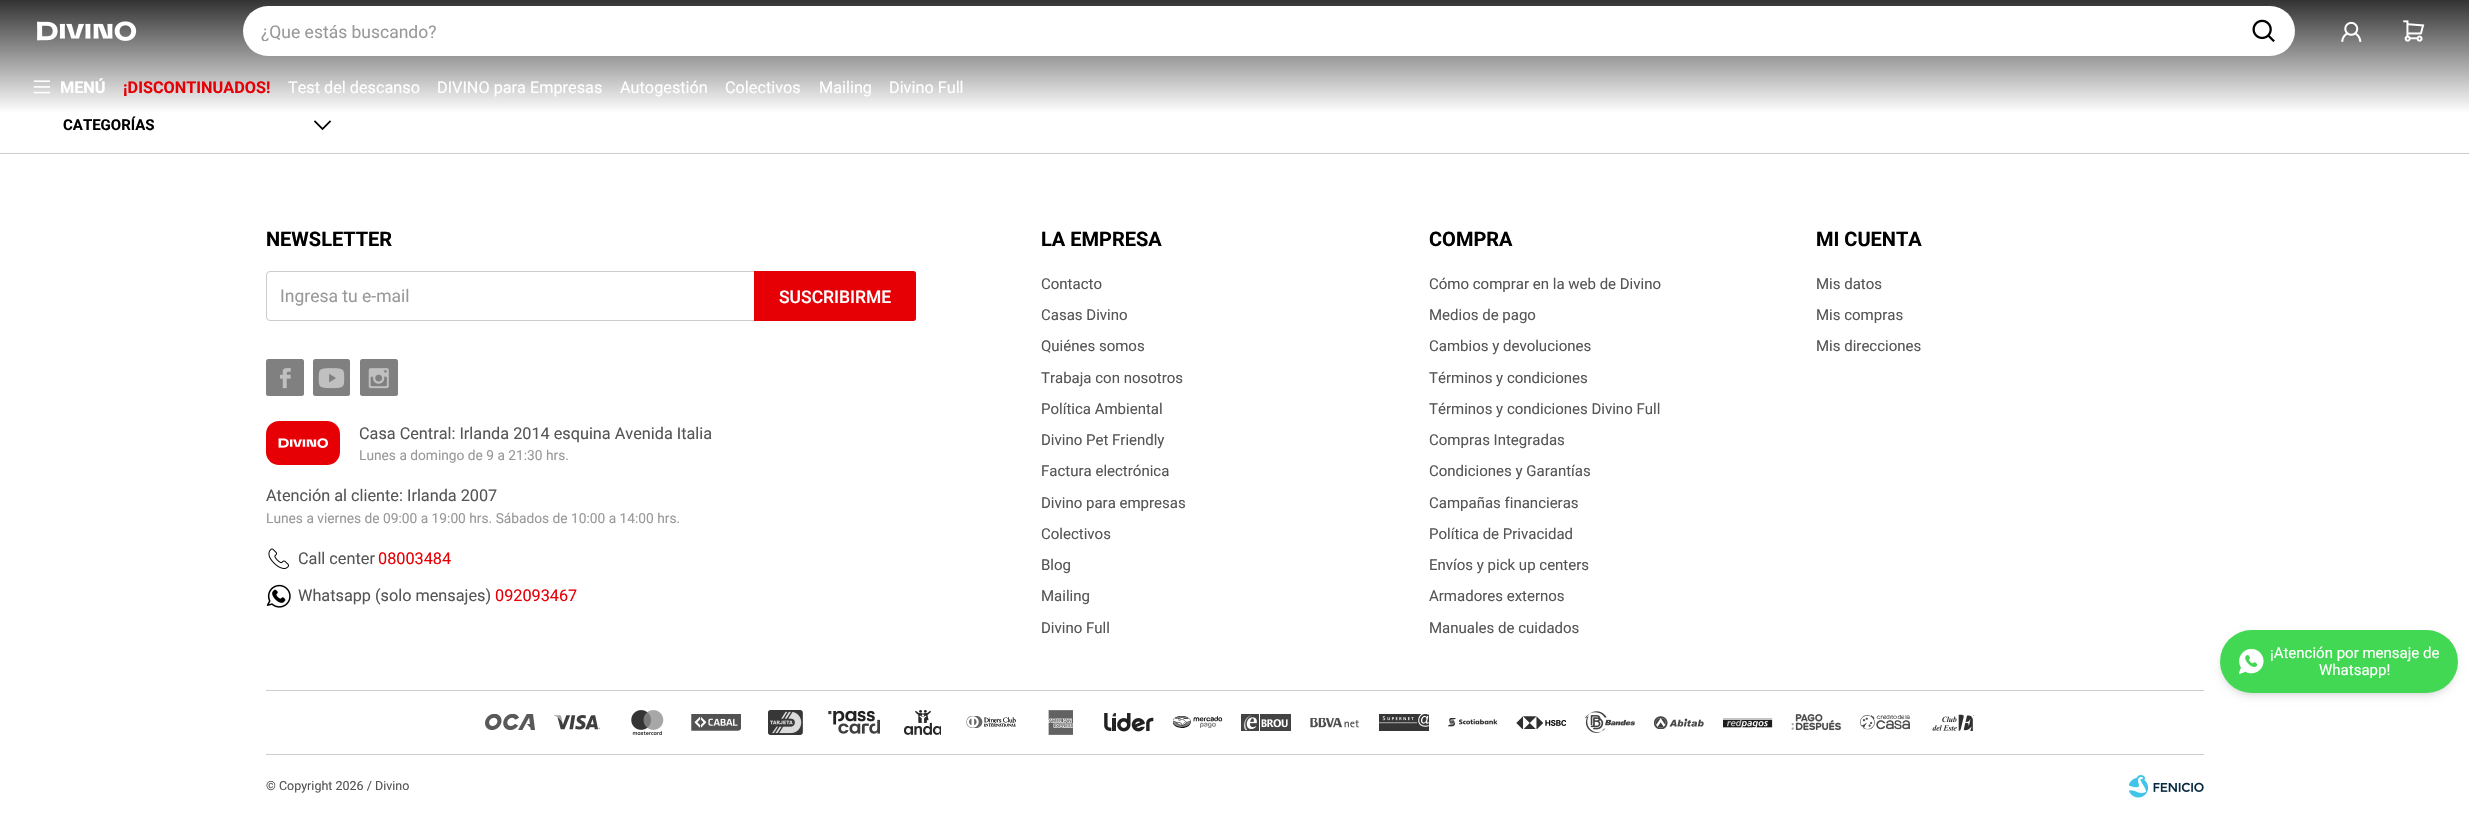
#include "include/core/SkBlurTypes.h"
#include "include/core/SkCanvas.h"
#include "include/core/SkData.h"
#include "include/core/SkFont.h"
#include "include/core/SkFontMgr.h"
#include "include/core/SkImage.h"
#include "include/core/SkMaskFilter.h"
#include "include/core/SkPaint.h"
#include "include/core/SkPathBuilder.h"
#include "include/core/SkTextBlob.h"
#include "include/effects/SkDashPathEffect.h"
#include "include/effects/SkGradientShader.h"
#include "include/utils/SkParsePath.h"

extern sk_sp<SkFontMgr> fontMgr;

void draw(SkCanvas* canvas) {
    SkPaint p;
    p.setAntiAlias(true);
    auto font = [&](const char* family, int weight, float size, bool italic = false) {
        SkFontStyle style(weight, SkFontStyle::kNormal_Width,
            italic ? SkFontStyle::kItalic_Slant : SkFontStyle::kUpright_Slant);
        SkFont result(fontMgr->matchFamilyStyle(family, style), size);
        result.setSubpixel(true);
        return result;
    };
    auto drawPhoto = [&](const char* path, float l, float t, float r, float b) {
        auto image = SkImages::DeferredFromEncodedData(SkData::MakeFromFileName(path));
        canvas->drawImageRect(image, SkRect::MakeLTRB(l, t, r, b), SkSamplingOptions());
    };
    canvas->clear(0xFFFFFFFF);
    {
        const SkColor colors[] = {0xFF333333, 0xFFFFFFFF};
        const float stops[] = {0, 1};
        const SkPoint ends[] = {{1235, 0}, {1235, 113}};
        p.setShader(SkGradientShader::MakeLinear(ends, colors, stops, 2, SkTileMode::kClamp));
        p.setAlpha(255);
    }
    canvas->drawRect(SkRect::MakeLTRB(0, 0, 2469, 112), p);
    drawPhoto("media/1.png", 37, 21, 137, 41);
    p.setShader(nullptr);
    p.setColor(0xFFFFFFFF);
    canvas->drawRoundRect(SkRect::MakeLTRB(243, 6, 2295, 56), 25, 25, p);
    canvas->save();
    canvas->clipRect(SkRect::MakeLTRB(261, 21, 2233, 41));
    auto font1 = font("Roboto", 400, 17.5f);
    p.setColor(0xFF999999);
    canvas->drawString("¿Que estás buscando?", 261, 38, font1, p);
    canvas->restore();
    drawPhoto("media/2.png", 2252, 19, 2275, 42);
    drawPhoto("media/3.png", 2341, 21, 2362, 42);
    drawPhoto("media/4.png", 2403, 20, 2425, 42);
    drawPhoto("media/5.png", 33, 80, 50, 94);
    auto font2 = font("Roboto", 700, 16.25f);
    p.setColor(0xFFFFFFFF);
    canvas->drawString("MENÚ", 60, 93, font2, p);
    p.setColor(0xFFE60005);
    canvas->drawString("¡DISCONTINUADOS!", 123, 93, font2, p);
    auto font3 = font("Roboto", 400, 16.25f);
    p.setColor(0xFFFFFFFF);
    {
        const struct { const char* s; float x, y; } items[] = {
            {"Test del descanso", 288, 93},
            {"DIVINO para Empresas", 437, 93},
            {"Autogestión", 620, 93},
            {"Colectivos", 725, 93},
            {"Mailing", 819, 93},
            {"Divino Full", 889, 93},
        };
        for (auto [s, x, y] : items) {
            canvas->drawString(s, x, y, font3, p);
        }
    }
    auto font4 = font("Roboto", 700, 15);
    p.setColor(0xFF000000);
    canvas->drawString("CATEGORÍAS", 63, 130, font4, p);
    drawPhoto("media/6.png", 313, 120, 332, 131);
    p.setColor(0xFFCCCCCC);
    canvas->drawRect(SkRect::MakeLTRB(0, 153, 2469, 154), p);
    auto font5 = font("Roboto", 700, 20);
    p.setColor(0xFF000000);
    canvas->drawString("NEWSLETTER", 266, 246, font5, p);
    p.setStyle(SkPaint::kStroke_Style);
    p.setStrokeWidth(1);
    p.setColor(0xFFCCCCCC);
    canvas->drawRoundRect(SkRect::MakeLTRB(266.5f, 271.5f, 915.5f, 320.5f), 3.5f, 3.5f, p);
    p.setStyle(SkPaint::kFill_Style);
    p.setColor(0xFF999999);
    canvas->drawString("Ingresa tu e-mail", 280, 302, font1, p);
    p.setColor(0xFFE60005);
    canvas->drawPath(SkPathBuilder().moveTo(754, 271).lineTo(913.5f, 271).cubicTo(915, 271, 916, 272, 916, 273.5f).lineTo(916, 318.5f).cubicTo(916, 320, 915, 321, 913.5f, 321).lineTo(754, 321).close().detach(), p);
    auto font6 = font("Roboto", 500, 17.5f);
    p.setColor(0xFFFFFFFF);
    canvas->drawString("SUSCRIBIRME", 779, 303, font6, p);
    p.setColor(0xFF808080);
    canvas->drawRoundRect(SkRect::MakeLTRB(266, 359, 304, 396), 2.5f, 2.5f, p);
    drawPhoto("media/7.png", 280, 368, 291, 389);
    canvas->drawRoundRect(SkRect::MakeLTRB(313, 359, 350, 396), 2.5f, 2.5f, p);
    drawPhoto("media/8.png", 318, 368, 345, 389);
    canvas->drawRoundRect(SkRect::MakeLTRB(360, 359, 398, 396), 2.5f, 2.5f, p);
    drawPhoto("media/9.png", 368, 368, 389, 389);
    p.setColor(0xFFE60005);
    canvas->drawRoundRect(SkRect::MakeLTRB(266, 421, 340, 465), 13, 13, p);
    drawPhoto("media/10.png", 278, 438, 328, 448);
    p.setColor(0xFF555555);
    canvas->drawString("Casa Central: Irlanda 2014 esquina Avenida Italia", 359, 439, font3, p);
    auto font7 = font("Roboto", 400, 13.75f);
    p.setColor(0xFF999999);
    canvas->drawString("Lunes a domingo de 9 a 21:30 hrs.", 359, 460, font7, p);
    p.setColor(0xFF555555);
    canvas->drawString("Atención al cliente: Irlanda 2007", 266, 501, font3, p);
    p.setColor(0xFF999999);
    canvas->drawString("Lunes a viernes de 09:00 a 19:00 hrs. Sábados de 10:00 a 14:00 hrs.", 266, 523, font7, p);
    drawPhoto("media/11.png", 268, 548, 289, 569);
    p.setColor(0xFF555555);
    canvas->drawString("Call center", 298, 564, font3, p);
    p.setColor(0xFFE60005);
    canvas->drawString("08003484", 378, 564, font3, p);
    drawPhoto("media/12.png", 266, 584, 291, 608);
    p.setColor(0xFF555555);
    canvas->drawString("Whatsapp (solo mensajes)", 298, 601, font3, p);
    p.setColor(0xFFE60005);
    canvas->drawString("092093467", 495, 601, font3, p);
    p.setColor(0xFF000000);
    canvas->drawString("LA EMPRESA", 1041, 246, font5, p);
    auto font8 = font("Roboto", 400, 15);
    p.setColor(0xFF555555);
    {
        const struct { const char* s; float x, y; } items[] = {
            {"Contacto", 1041, 289},
            {"Casas Divino", 1041, 320},
            {"Quiénes somos", 1041, 351},
            {"Trabaja con nosotros", 1041, 383},
            {"Política Ambiental", 1041, 414},
            {"Divino Pet Friendly", 1041, 445},
            {"Factura electrónica", 1041, 476},
            {"Divino para empresas", 1041, 508},
            {"Colectivos", 1041, 539},
            {"Blog", 1041, 570},
            {"Mailing", 1041, 601},
            {"Divino Full", 1041, 633},
        };
        for (auto [s, x, y] : items) {
            canvas->drawString(s, x, y, font8, p);
        }
    }
    p.setColor(0xFF000000);
    canvas->drawString("COMPRA", 1429, 246, font5, p);
    p.setColor(0xFF555555);
    {
        const struct { const char* s; float x, y; } items[] = {
            {"Cómo comprar en la web de Divino", 1429, 289},
            {"Medios de pago", 1429, 320},
            {"Cambios y devoluciones", 1429, 351},
            {"Términos y condiciones", 1429, 383},
            {"Términos y condiciones Divino Full", 1429, 414},
            {"Compras Integradas", 1429, 445},
            {"Condiciones y Garantías", 1429, 476},
            {"Campañas financieras", 1429, 508},
            {"Política de Privacidad", 1429, 539},
            {"Envíos y pick up centers", 1429, 570},
            {"Armadores externos", 1429, 601},
            {"Manuales de cuidados", 1429, 633},
        };
        for (auto [s, x, y] : items) {
            canvas->drawString(s, x, y, font8, p);
        }
    }
    p.setColor(0xFF000000);
    canvas->drawString("MI CUENTA", 1816, 246, font5, p);
    p.setColor(0xFF555555);
    {
        const struct { const char* s; float x, y; } items[] = {
            {"Mis datos", 1816, 289},
            {"Mis compras", 1816, 320},
            {"Mis direcciones", 1816, 351},
        };
        for (auto [s, x, y] : items) {
            canvas->drawString(s, x, y, font8, p);
        }
    }
    p.setColor(0xFFCCCCCC);
    canvas->drawRect(SkRect::MakeLTRB(266, 690, 2204, 691), p);
    drawPhoto("media/13.png", 485, 714, 535, 731);
    drawPhoto("media/14.png", 554, 715, 600, 730);
    drawPhoto("media/15.png", 631, 710, 664, 735);
    drawPhoto("media/16.png", 691, 714, 741, 731);
    drawPhoto("media/17.png", 768, 710, 803, 735);
    drawPhoto("media/18.png", 828, 710, 880, 734);
    drawPhoto("media/19.png", 904, 710, 941, 735);
    drawPhoto("media/20.png", 966, 716, 1016, 728);
    drawPhoto("media/21.png", 1048, 710, 1073, 735);
    drawPhoto("media/22.png", 1104, 713, 1154, 732);
    drawPhoto("media/23.png", 1173, 716, 1223, 728);
    drawPhoto("media/24.png", 1241, 714, 1291, 731);
    drawPhoto("media/25.png", 1310, 718, 1359, 728);
    drawPhoto("media/26.png", 1379, 714, 1429, 731);
    drawPhoto("media/27.png", 1448, 718, 1498, 727);
    drawPhoto("media/28.png", 1516, 716, 1566, 729);
    drawPhoto("media/29.png", 1585, 711, 1635, 733);
    drawPhoto("media/30.png", 1654, 716, 1704, 729);
    drawPhoto("media/31.png", 1723, 718, 1773, 728);
    drawPhoto("media/32.png", 1791, 714, 1841, 731);
    drawPhoto("media/33.png", 1860, 715, 1910, 730);
    drawPhoto("media/34.png", 1932, 714, 1975, 731);
    canvas->drawRect(SkRect::MakeLTRB(266, 754, 2204, 755), p);
    auto font9 = font("Roboto", 400, 12.5f);
    p.setColor(0xFF555555);
    canvas->drawString("© Copyright 2026 / Divino", 266, 790, font9, p);
    drawPhoto("media/35.png", 2129, 775, 2204, 798);
    p.setColor(0x1A000000);
    p.setMaskFilter(SkMaskFilter::MakeBlur(kNormal_SkBlurStyle, 2.5f));
    canvas->drawRoundRect(SkRect::MakeLTRB(2223, 635, 2455, 693), 29, 29, p);
    p.setMaskFilter(nullptr);
    p.setMaskFilter(SkMaskFilter::MakeBlur(kNormal_SkBlurStyle, 4));
    canvas->drawRoundRect(SkRect::MakeLTRB(2221, 636, 2456, 696), 30, 30, p);
    p.setMaskFilter(nullptr);
    p.setColor(0xFF43D854);
    canvas->drawRoundRect(SkRect::MakeLTRB(2220, 630, 2458, 693), 31.5f, 31.5f, p);
    drawPhoto("media/36.png", 2239, 648, 2264, 674);
    p.setColor(0xFFFFFFFF);
    canvas->drawString("¡Atención por mensaje de", 2270, 658, font8, p);
    canvas->drawString("Whatsapp!", 2319, 675, font8, p);
}
